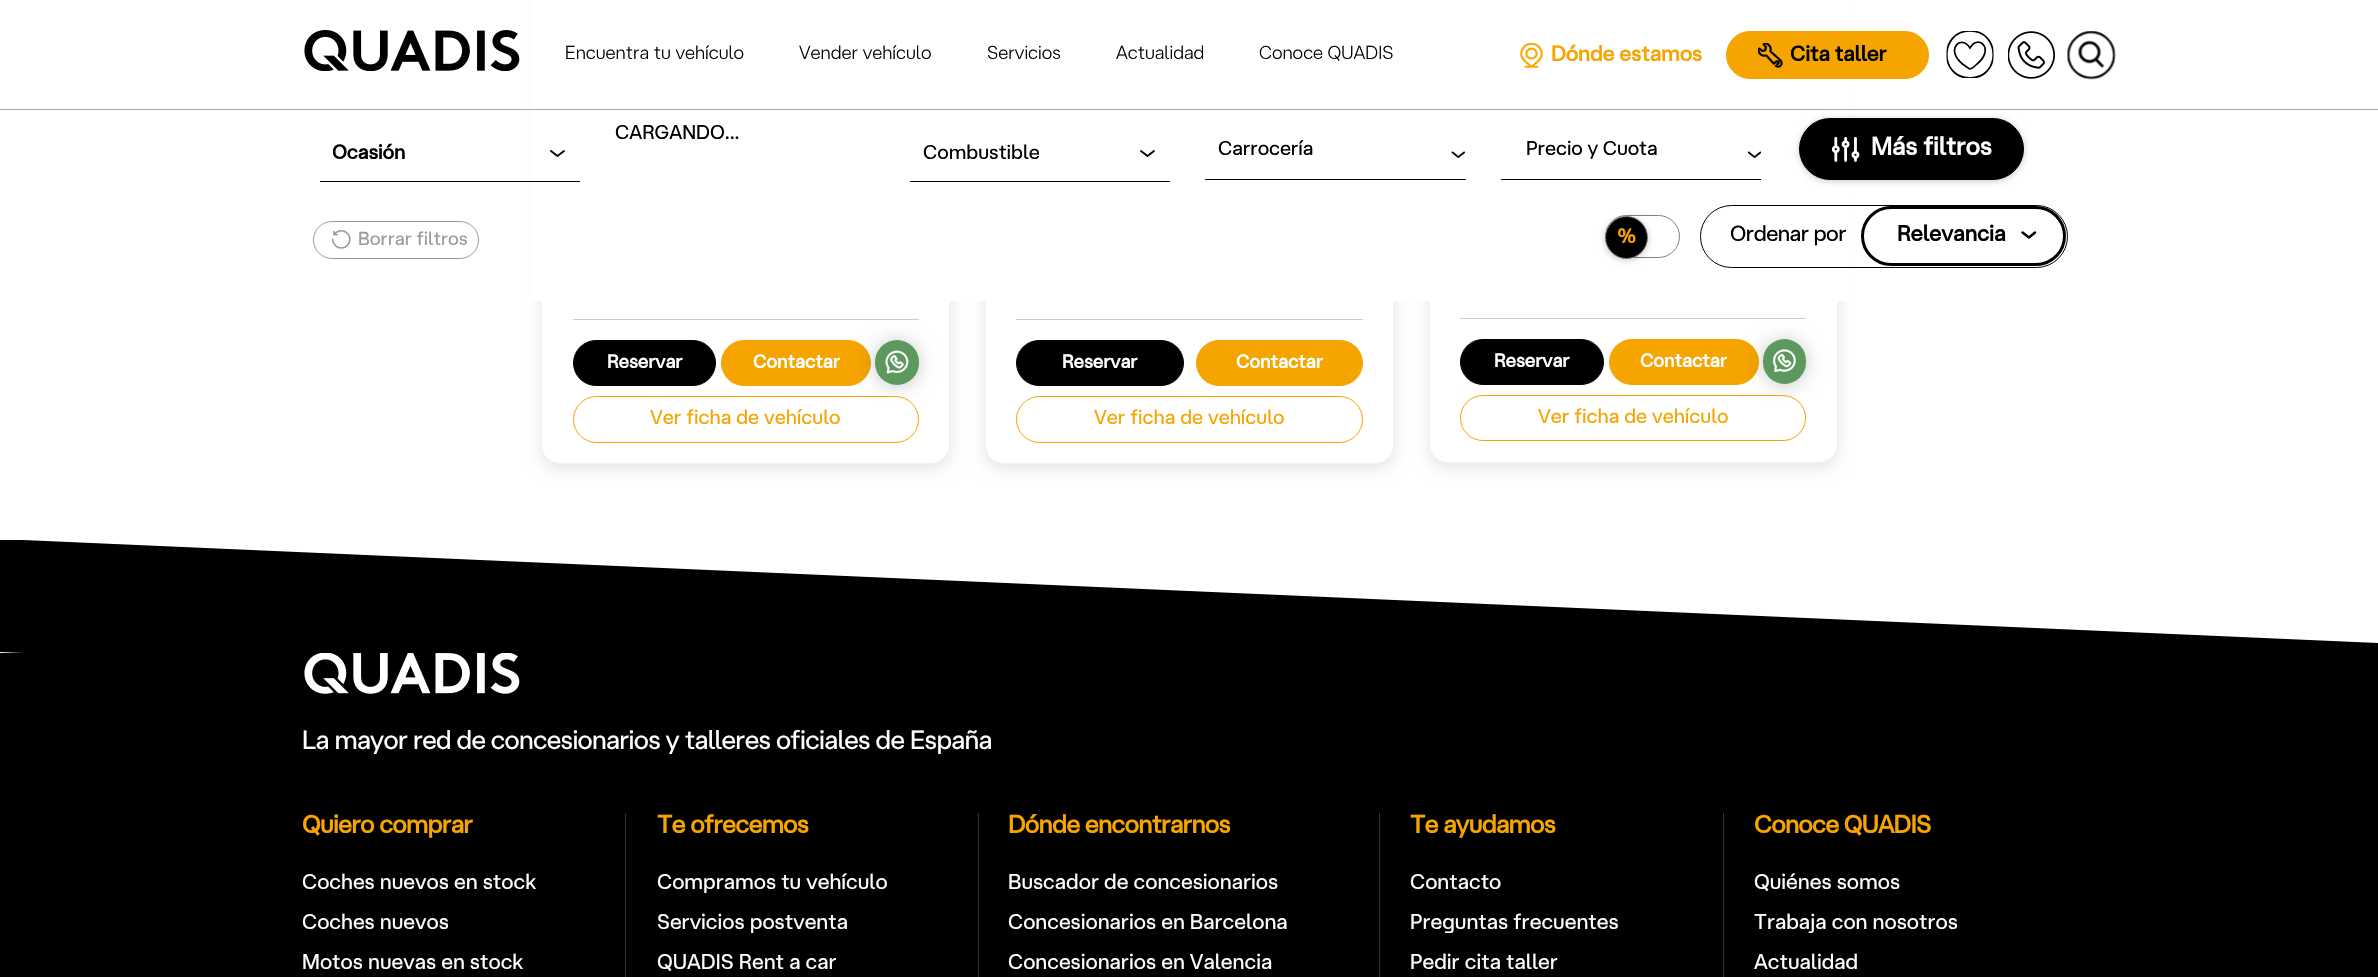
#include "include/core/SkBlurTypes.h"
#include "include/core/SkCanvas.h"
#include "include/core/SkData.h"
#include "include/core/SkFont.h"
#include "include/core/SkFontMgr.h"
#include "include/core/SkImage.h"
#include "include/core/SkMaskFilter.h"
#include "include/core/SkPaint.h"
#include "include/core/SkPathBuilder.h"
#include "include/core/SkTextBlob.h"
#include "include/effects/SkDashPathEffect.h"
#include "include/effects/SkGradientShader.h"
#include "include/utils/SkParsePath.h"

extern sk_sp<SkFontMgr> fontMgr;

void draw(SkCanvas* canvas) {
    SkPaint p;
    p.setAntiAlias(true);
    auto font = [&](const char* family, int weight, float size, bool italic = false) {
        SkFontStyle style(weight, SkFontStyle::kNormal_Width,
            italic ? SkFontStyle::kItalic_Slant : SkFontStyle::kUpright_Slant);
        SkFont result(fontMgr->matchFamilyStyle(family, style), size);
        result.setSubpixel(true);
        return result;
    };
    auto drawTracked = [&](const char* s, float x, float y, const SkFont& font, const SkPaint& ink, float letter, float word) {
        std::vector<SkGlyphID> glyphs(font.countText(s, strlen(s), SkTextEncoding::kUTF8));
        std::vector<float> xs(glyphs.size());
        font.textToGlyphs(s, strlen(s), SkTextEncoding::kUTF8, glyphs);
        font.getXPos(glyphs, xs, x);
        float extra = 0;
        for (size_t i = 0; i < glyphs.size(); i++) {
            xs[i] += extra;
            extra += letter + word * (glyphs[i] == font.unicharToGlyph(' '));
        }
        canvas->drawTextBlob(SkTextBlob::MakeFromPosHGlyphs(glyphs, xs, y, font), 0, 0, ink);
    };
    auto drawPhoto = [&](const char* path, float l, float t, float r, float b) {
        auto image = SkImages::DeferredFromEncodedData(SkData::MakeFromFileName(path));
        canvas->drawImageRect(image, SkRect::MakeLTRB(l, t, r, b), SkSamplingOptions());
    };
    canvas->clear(0xFFFFFFFF);
    p.setColor(0x1A000000);
    p.setMaskFilter(SkMaskFilter::MakeBlur(kNormal_SkBlurStyle, 7.5f));
    canvas->drawRoundRect(SkRect::MakeLTRB(541, -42, 950, 469), 19, 19, p);
    p.setMaskFilter(nullptr);
    p.setColor(0xFFFFFFFF);
    canvas->drawRoundRect(SkRect::MakeLTRB(541.5f, -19.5f, 949.5f, 463.5f), 18.5f, 18.5f, p);
    p.setStyle(SkPaint::kStroke_Style);
    p.setStrokeWidth(1);
    p.setColor(0xFFF2F2F2);
    canvas->drawRoundRect(SkRect::MakeLTRB(541.5f, -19.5f, 949.5f, 463.5f), 18.5f, 18.5f, p);
    p.setStyle(SkPaint::kFill_Style);
    p.setColor(0x1A000000);
    p.setMaskFilter(SkMaskFilter::MakeBlur(kNormal_SkBlurStyle, 7.5f));
    canvas->drawRoundRect(SkRect::MakeLTRB(985, -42, 1394, 469), 19, 19, p);
    p.setMaskFilter(nullptr);
    p.setColor(0xFFFFFFFF);
    canvas->drawRoundRect(SkRect::MakeLTRB(985.5f, -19.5f, 1393.5f, 463.5f), 18.5f, 18.5f, p);
    p.setStyle(SkPaint::kStroke_Style);
    p.setColor(0xFFF2F2F2);
    canvas->drawRoundRect(SkRect::MakeLTRB(985.5f, -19.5f, 1393.5f, 463.5f), 18.5f, 18.5f, p);
    p.setStyle(SkPaint::kFill_Style);
    p.setColor(0x1A000000);
    p.setMaskFilter(SkMaskFilter::MakeBlur(kNormal_SkBlurStyle, 7.5f));
    canvas->drawRoundRect(SkRect::MakeLTRB(1429, -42, 1838, 468), 19, 19, p);
    p.setMaskFilter(nullptr);
    p.setColor(0xFFFFFFFF);
    canvas->drawRoundRect(SkRect::MakeLTRB(1429.5f, -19.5f, 1837.5f, 462.5f), 18.5f, 18.5f, p);
    p.setStyle(SkPaint::kStroke_Style);
    p.setColor(0xFFF2F2F2);
    canvas->drawRoundRect(SkRect::MakeLTRB(1429.5f, -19.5f, 1837.5f, 462.5f), 18.5f, 18.5f, p);
    p.setStyle(SkPaint::kFill_Style);
    p.setColor(0xFFFFFFFF);
    canvas->drawRect(SkRect::MakeLTRB(531, 0, 1848, 109), p);
    canvas->drawRect(SkRect::MakeLTRB(531, 110, 1848, 301), p);
    p.setColor(0x38000000);
    p.setMaskFilter(SkMaskFilter::MakeBlur(kNormal_SkBlurStyle, 3));
    canvas->drawRoundRect(SkRect::MakeLTRB(1799, 119, 2024, 181), 31, 31, p);
    p.setMaskFilter(nullptr);
    p.setColor(0xFFA9A9A9);
    canvas->drawRect(SkRect::MakeLTRB(0, 109, 2378, 110), p);
    drawPhoto("media/1.png", 304, 30, 520, 71);
    auto font1 = font("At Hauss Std", 300, 18.75f);
    p.setColor(0xFF000000);
    {
        const struct { const char* s; float x, y; } items[] = {
            {"Encuentra tu vehículo", 565, 59},
            {"Vender vehículo", 799, 59},
            {"Servicios", 987, 59},
            {"Actualidad", 1116, 59},
            {"Conoce QUADIS", 1259, 59},
        };
        for (auto [s, x, y] : items) {
            canvas->drawString(s, x, y, font1, p);
        }
    }
    drawPhoto("media/2.png", 1520, 43, 1543, 68);
    auto font2 = font("At Hauss Std", 700, 21.25f);
    p.setColor(0xFFF5A400);
    canvas->drawString("Dónde estamos", 1551, 61, font2, p);
    canvas->drawRoundRect(SkRect::MakeLTRB(1726.5f, 31.5f, 1928.5f, 78.5f), 23.5f, 23.5f, p);
    p.setStyle(SkPaint::kStroke_Style);
    canvas->drawRoundRect(SkRect::MakeLTRB(1726.5f, 31.5f, 1928.5f, 78.5f), 23.5f, 23.5f, p);
    drawPhoto("media/3.png", 1758, 43, 1783, 68);
    p.setStyle(SkPaint::kFill_Style);
    p.setColor(0xFF000000);
    canvas->drawString("Cita taller", 1790, 61, font2, p);
    canvas->save();
    canvas->clipPath(SkPathBuilder().moveTo(1946.5f, 31).lineTo(1993.5f, 31).lineTo(1993.5f, 78).lineTo(1946.5f, 78).close().detach(), true);
    p.setStyle(SkPaint::kStroke_Style);
    p.setStrokeWidth(1.7f);
    canvas->drawPath(SkPathBuilder().moveTo(1970, 78).cubicTo(2001, 78, 2001, 31, 1970, 31).cubicTo(1939, 31, 1939, 78, 1970, 78).close().moveTo(1972.5f, 44.5f).cubicTo(1981.5f, 36.5f, 1993.5f, 50.5f, 1977, 64).cubicTo(1976, 65, 1972, 69, 1969.5f, 69).lineTo(1962.5f, 64).cubicTo(1944.5f, 49, 1961.5f, 34, 1970, 48).close().detach(), p);
    canvas->restore();
    drawPhoto("media/4.png", 2008, 31, 2055, 79);
    drawPhoto("media/5.png", 2067, 31, 2116, 80);
    auto font3 = font("At Hauss Std", 400, 20);
    p.setStyle(SkPaint::kFill_Style);
    canvas->drawString("CARGANDO...", 615, 139, font3, p);
    canvas->drawRect(SkRect::MakeLTRB(320, 181, 580, 182), p);
    canvas->save();
    canvas->clipRect(SkRect::MakeLTRB(333, 139, 530, 168));
    auto font4 = font("At Hauss Std", 700, 20);
    canvas->drawString("Ocasión", 332, 159, font4, p);
    canvas->restore();
    p.setStyle(SkPaint::kStroke_Style);
    p.setStrokeWidth(1.9f);
    p.setStrokeCap(SkPaint::kRound_Cap);
    p.setStrokeJoin(SkPaint::kRound_Join);
    canvas->drawPath(SkPathBuilder().moveTo(564, 151).lineTo(557.5f, 156).lineTo(551, 151).detach(), p);
    p.setStyle(SkPaint::kFill_Style);
    canvas->drawRect(SkRect::MakeLTRB(910, 181, 1170, 182), p);
    canvas->drawString("Combustible", 923, 159, font3, p);
    p.setStyle(SkPaint::kStroke_Style);
    canvas->drawPath(SkPathBuilder().moveTo(1154, 151).lineTo(1147.5f, 156).lineTo(1141, 151).detach(), p);
    p.setStyle(SkPaint::kFill_Style);
    canvas->drawRect(SkRect::MakeLTRB(1205, 179, 1466, 180), p);
    drawTracked("Carrocería", 1218, 155, font3, p, -0.1f, 0);
    drawPhoto("media/6.png", 1451, 151, 1466, 158);
    canvas->drawRect(SkRect::MakeLTRB(1501, 179, 1761, 180), p);
    drawTracked("Precio y Cuota", 1526, 155, font3, p, -0.1f, 0);
    drawPhoto("media/7.png", 1748, 151, 1761, 158);
    canvas->drawRoundRect(SkRect::MakeLTRB(1799.5f, 118.5f, 2023.5f, 179.5f), 30.5f, 30.5f, p);
    p.setStyle(SkPaint::kStroke_Style);
    p.setStrokeWidth(1);
    p.setStrokeCap(SkPaint::kButt_Cap);
    p.setStrokeJoin(SkPaint::kMiter_Join);
    canvas->drawRoundRect(SkRect::MakeLTRB(1799.5f, 118.5f, 2023.5f, 179.5f), 30.5f, 30.5f, p);
    drawPhoto("media/8.png", 1831, 136, 1860, 162);
    auto font5 = font("At Hauss Std", 700, 25);
    p.setStyle(SkPaint::kFill_Style);
    p.setColor(0xFFFFFFFF);
    canvas->drawString("Más filtros", 1871, 155, font5, p);
    p.setStyle(SkPaint::kStroke_Style);
    p.setColor(0xFF9B9B9B);
    canvas->drawRoundRect(SkRect::MakeLTRB(313.5f, 221.5f, 478.5f, 258.5f), 18.5f, 18.5f, p);
    drawPhoto("media/9.png", 331, 230, 351, 249);
    auto font6 = font("At Hauss Std", 400, 18.75f);
    p.setStyle(SkPaint::kFill_Style);
    canvas->drawString("Borrar filtros", 358, 245, font6, p);
    p.setStyle(SkPaint::kStroke_Style);
    p.setColor(0xFF808080);
    canvas->drawRoundRect(SkRect::MakeLTRB(1605.5f, 215.5f, 1679.5f, 257.5f), 21, 21, p);
    p.setStyle(SkPaint::kFill_Style);
    p.setColor(0x38000000);
    p.setMaskFilter(SkMaskFilter::MakeBlur(kNormal_SkBlurStyle, 3));
    canvas->drawRoundRect(SkRect::MakeLTRB(1605, 218, 1648, 260), 21, 21, p);
    p.setMaskFilter(nullptr);
    p.setColor(0xFF000000);
    canvas->drawCircle(1626.5f, 237.5f, 21, p);
    p.setStyle(SkPaint::kStroke_Style);
    p.setColor(0xFF808080);
    canvas->drawCircle(1626.5f, 237.5f, 21, p);
    p.setStyle(SkPaint::kFill_Style);
    p.setColor(0xFFF5A400);
    canvas->drawString("%", 1617, 243, font4, p);
    p.setStyle(SkPaint::kStroke_Style);
    p.setColor(0xFF000000);
    canvas->drawRoundRect(SkRect::MakeLTRB(1700.5f, 205.5f, 2067.5f, 267.5f), 31, 31, p);
    auto font7 = font("At Hauss Std", 400, 22);
    p.setStyle(SkPaint::kFill_Style);
    drawTracked("Ordenar por", 1730, 241, font7, p, -0.5f, 0);
    p.setStyle(SkPaint::kStroke_Style);
    p.setStrokeWidth(3);
    canvas->drawRoundRect(SkRect::MakeLTRB(1862.5f, 207.5f, 2064.5f, 264.5f), 28.5f, 28.5f, p);
    auto font8 = font("At Hauss Std", 700, 22);
    p.setStyle(SkPaint::kFill_Style);
    canvas->drawString("Relevancia", 1897, 241, font8, p);
    p.setStyle(SkPaint::kStroke_Style);
    p.setStrokeWidth(2.5f);
    p.setStrokeCap(SkPaint::kRound_Cap);
    p.setStrokeJoin(SkPaint::kRound_Join);
    canvas->drawPath(SkPathBuilder().moveTo(2035, 232.5f).lineTo(2029, 237.5f).lineTo(2022.5f, 232.5f).detach(), p);
    p.setStyle(SkPaint::kFill_Style);
    p.setColor(0xFFCCCCCC);
    canvas->drawRect(SkRect::MakeLTRB(573, 319, 919, 320), p);
    p.setColor(0xFF000000);
    canvas->drawRoundRect(SkRect::MakeLTRB(573.5f, 340.5f, 715.5f, 385.5f), 22.5f, 22.5f, p);
    p.setStyle(SkPaint::kStroke_Style);
    p.setStrokeWidth(1);
    p.setStrokeCap(SkPaint::kButt_Cap);
    p.setStrokeJoin(SkPaint::kMiter_Join);
    canvas->drawRoundRect(SkRect::MakeLTRB(573.5f, 340.5f, 715.5f, 385.5f), 22.5f, 22.5f, p);
    auto font9 = font("At Hauss Std", 700, 18.75f);
    p.setStyle(SkPaint::kFill_Style);
    p.setColor(0xFFFFFFFF);
    canvas->drawString("Reservar", 607, 368, font9, p);
    p.setColor(0xFFF5A400);
    canvas->drawRoundRect(SkRect::MakeLTRB(721.5f, 340.5f, 870.5f, 385.5f), 22.5f, 22.5f, p);
    p.setStyle(SkPaint::kStroke_Style);
    canvas->drawRoundRect(SkRect::MakeLTRB(721.5f, 340.5f, 870.5f, 385.5f), 22.5f, 22.5f, p);
    p.setStyle(SkPaint::kFill_Style);
    p.setColor(0xFFFFFFFF);
    canvas->drawString("Contactar", 753, 368, font9, p);
    p.setColor(0x38000000);
    p.setMaskFilter(SkMaskFilter::MakeBlur(kNormal_SkBlurStyle, 9));
    canvas->drawRoundRect(SkRect::MakeLTRB(875, 341, 919, 386), 22, 22, p);
    p.setMaskFilter(nullptr);
    p.setColor(0xFF5D995F);
    canvas->drawRoundRect(SkRect::MakeLTRB(875, 340, 919, 385), 22, 22, p);
    drawPhoto("media/10.png", 885, 350, 909, 374);
    p.setStyle(SkPaint::kStroke_Style);
    p.setColor(0xFFF5A400);
    canvas->drawRoundRect(SkRect::MakeLTRB(573.5f, 396.5f, 918.5f, 442.5f), 23, 23, p);
    p.setStyle(SkPaint::kFill_Style);
    canvas->drawString("Ver ficha de vehículo", 650, 424, font3, p);
    p.setColor(0xFFCCCCCC);
    canvas->drawRect(SkRect::MakeLTRB(1016, 319, 1363, 320), p);
    p.setColor(0xFF000000);
    canvas->drawRoundRect(SkRect::MakeLTRB(1016.5f, 340.5f, 1183.5f, 385.5f), 22.5f, 22.5f, p);
    p.setStyle(SkPaint::kStroke_Style);
    canvas->drawRoundRect(SkRect::MakeLTRB(1016.5f, 340.5f, 1183.5f, 385.5f), 22.5f, 22.5f, p);
    p.setStyle(SkPaint::kFill_Style);
    p.setColor(0xFFFFFFFF);
    canvas->drawString("Reservar", 1062, 368, font9, p);
    p.setColor(0xFFF5A400);
    canvas->drawRoundRect(SkRect::MakeLTRB(1196.5f, 340.5f, 1362.5f, 385.5f), 22.5f, 22.5f, p);
    p.setStyle(SkPaint::kStroke_Style);
    canvas->drawRoundRect(SkRect::MakeLTRB(1196.5f, 340.5f, 1362.5f, 385.5f), 22.5f, 22.5f, p);
    p.setStyle(SkPaint::kFill_Style);
    p.setColor(0xFFFFFFFF);
    canvas->drawString("Contactar", 1236, 368, font9, p);
    p.setStyle(SkPaint::kStroke_Style);
    p.setColor(0xFFF5A400);
    canvas->drawRoundRect(SkRect::MakeLTRB(1016.5f, 396.5f, 1362.5f, 442.5f), 23, 23, p);
    p.setStyle(SkPaint::kFill_Style);
    canvas->drawString("Ver ficha de vehículo", 1094, 424, font3, p);
    p.setColor(0xFFCCCCCC);
    canvas->drawRect(SkRect::MakeLTRB(1460, 318, 1806, 319), p);
    p.setColor(0xFF000000);
    canvas->drawRoundRect(SkRect::MakeLTRB(1460.5f, 339.5f, 1603.5f, 384.5f), 22.5f, 22.5f, p);
    p.setStyle(SkPaint::kStroke_Style);
    canvas->drawRoundRect(SkRect::MakeLTRB(1460.5f, 339.5f, 1603.5f, 384.5f), 22.5f, 22.5f, p);
    p.setStyle(SkPaint::kFill_Style);
    p.setColor(0xFFFFFFFF);
    canvas->drawString("Reservar", 1494, 367, font9, p);
    p.setColor(0xFFF5A400);
    canvas->drawRoundRect(SkRect::MakeLTRB(1609.5f, 339.5f, 1758.5f, 384.5f), 22.5f, 22.5f, p);
    p.setStyle(SkPaint::kStroke_Style);
    canvas->drawRoundRect(SkRect::MakeLTRB(1609.5f, 339.5f, 1758.5f, 384.5f), 22.5f, 22.5f, p);
    p.setStyle(SkPaint::kFill_Style);
    p.setColor(0xFFFFFFFF);
    canvas->drawString("Contactar", 1640, 367, font9, p);
    p.setColor(0x38000000);
    p.setMaskFilter(SkMaskFilter::MakeBlur(kNormal_SkBlurStyle, 9));
    canvas->drawRoundRect(SkRect::MakeLTRB(1763, 340, 1806, 385), 21.5f, 21.5f, p);
    p.setMaskFilter(nullptr);
    p.setColor(0xFF5D995F);
    canvas->drawRoundRect(SkRect::MakeLTRB(1763, 339, 1806, 384), 21.5f, 21.5f, p);
    drawPhoto("media/11.png", 1773, 349, 1796, 373);
    p.setStyle(SkPaint::kStroke_Style);
    p.setColor(0xFFF5A400);
    canvas->drawRoundRect(SkRect::MakeLTRB(1460.5f, 395.5f, 1805.5f, 440.5f), 22.5f, 22.5f, p);
    p.setStyle(SkPaint::kFill_Style);
    canvas->drawString("Ver ficha de vehículo", 1538, 423, font3, p);
    canvas->save();
    canvas->clipRect(SkRect::MakeLTRB(0, 540, 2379, 653));
    p.setColor(0xFF000000);
    canvas->drawPath(SkPathBuilder().moveTo(0, 539).lineTo(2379, 643).lineTo(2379, 756).lineTo(0, 652).close().detach(), p);
    canvas->restore();
    canvas->drawRect(SkRect::MakeLTRB(0, 653, 2378, 977), p);
    drawPhoto("media/12.png", 304, 653, 520, 694);
    auto font10 = font("At Hauss Std", 400, 26.25f);
    p.setColor(0xFFFFFFFF);
    drawTracked("La mayor red de concesionarios y talleres oficiales de España", 302, 749, font10, p, -0.68f, 0);
    p.setColor(0xFF333333);
    canvas->drawRect(SkRect::MakeLTRB(625, 813, 626, 977), p);
    p.setColor(0xFFF5A400);
    drawTracked("Quiero comprar", 302, 833, font5, p, -0.6f, 0);
    auto font11 = font("At Hauss Std", 400, 21.25f);
    p.setColor(0xFFFFFFFF);
    {
        const struct { const char* s; float x, y; } items[] = {
            {"Coches nuevos en stock", 302, 889},
            {"Coches nuevos", 302, 929},
            {"Motos nuevas en stock", 302, 969},
        };
        for (auto [s, x, y] : items) {
            canvas->drawString(s, x, y, font11, p);
        }
    }
    p.setColor(0xFF333333);
    canvas->drawRect(SkRect::MakeLTRB(978, 813, 979, 977), p);
    p.setColor(0xFFF5A400);
    drawTracked("Te ofrecemos", 657, 833, font5, p, -0.6f, 0);
    p.setColor(0xFFFFFFFF);
    {
        const struct { const char* s; float x, y; } items[] = {
            {"Compramos tu vehículo", 657, 889},
            {"Servicios postventa", 657, 929},
            {"QUADIS Rent a car", 657, 969},
        };
        for (auto [s, x, y] : items) {
            canvas->drawString(s, x, y, font11, p);
        }
    }
    p.setColor(0xFF333333);
    canvas->drawRect(SkRect::MakeLTRB(1379, 813, 1380, 977), p);
    p.setColor(0xFFF5A400);
    drawTracked("Dónde encontrarnos", 1008, 833, font5, p, -0.6f, 0);
    p.setColor(0xFFFFFFFF);
    {
        const struct { const char* s; float x, y; } items[] = {
            {"Buscador de concesionarios", 1008, 889},
            {"Concesionarios en Barcelona", 1008, 929},
            {"Concesionarios en Valencia", 1008, 969},
        };
        for (auto [s, x, y] : items) {
            canvas->drawString(s, x, y, font11, p);
        }
    }
    p.setColor(0xFF333333);
    canvas->drawRect(SkRect::MakeLTRB(1723, 813, 1724, 977), p);
    p.setColor(0xFFF5A400);
    drawTracked("Te ayudamos", 1410, 833, font5, p, -0.6f, 0);
    p.setColor(0xFFFFFFFF);
    {
        const struct { const char* s; float x, y; } items[] = {
            {"Contacto", 1410, 889},
            {"Preguntas frecuentes", 1410, 929},
            {"Pedir cita taller", 1410, 969},
        };
        for (auto [s, x, y] : items) {
            canvas->drawString(s, x, y, font11, p);
        }
    }
    p.setColor(0xFFF5A400);
    drawTracked("Conoce QUADIS", 1754, 833, font5, p, -0.6f, 0);
    p.setColor(0xFFFFFFFF);
    {
        const struct { const char* s; float x, y; } items[] = {
            {"Quiénes somos", 1754, 889},
            {"Trabaja con nosotros", 1754, 929},
            {"Actualidad", 1754, 969},
        };
        for (auto [s, x, y] : items) {
            canvas->drawString(s, x, y, font11, p);
        }
    }
}
